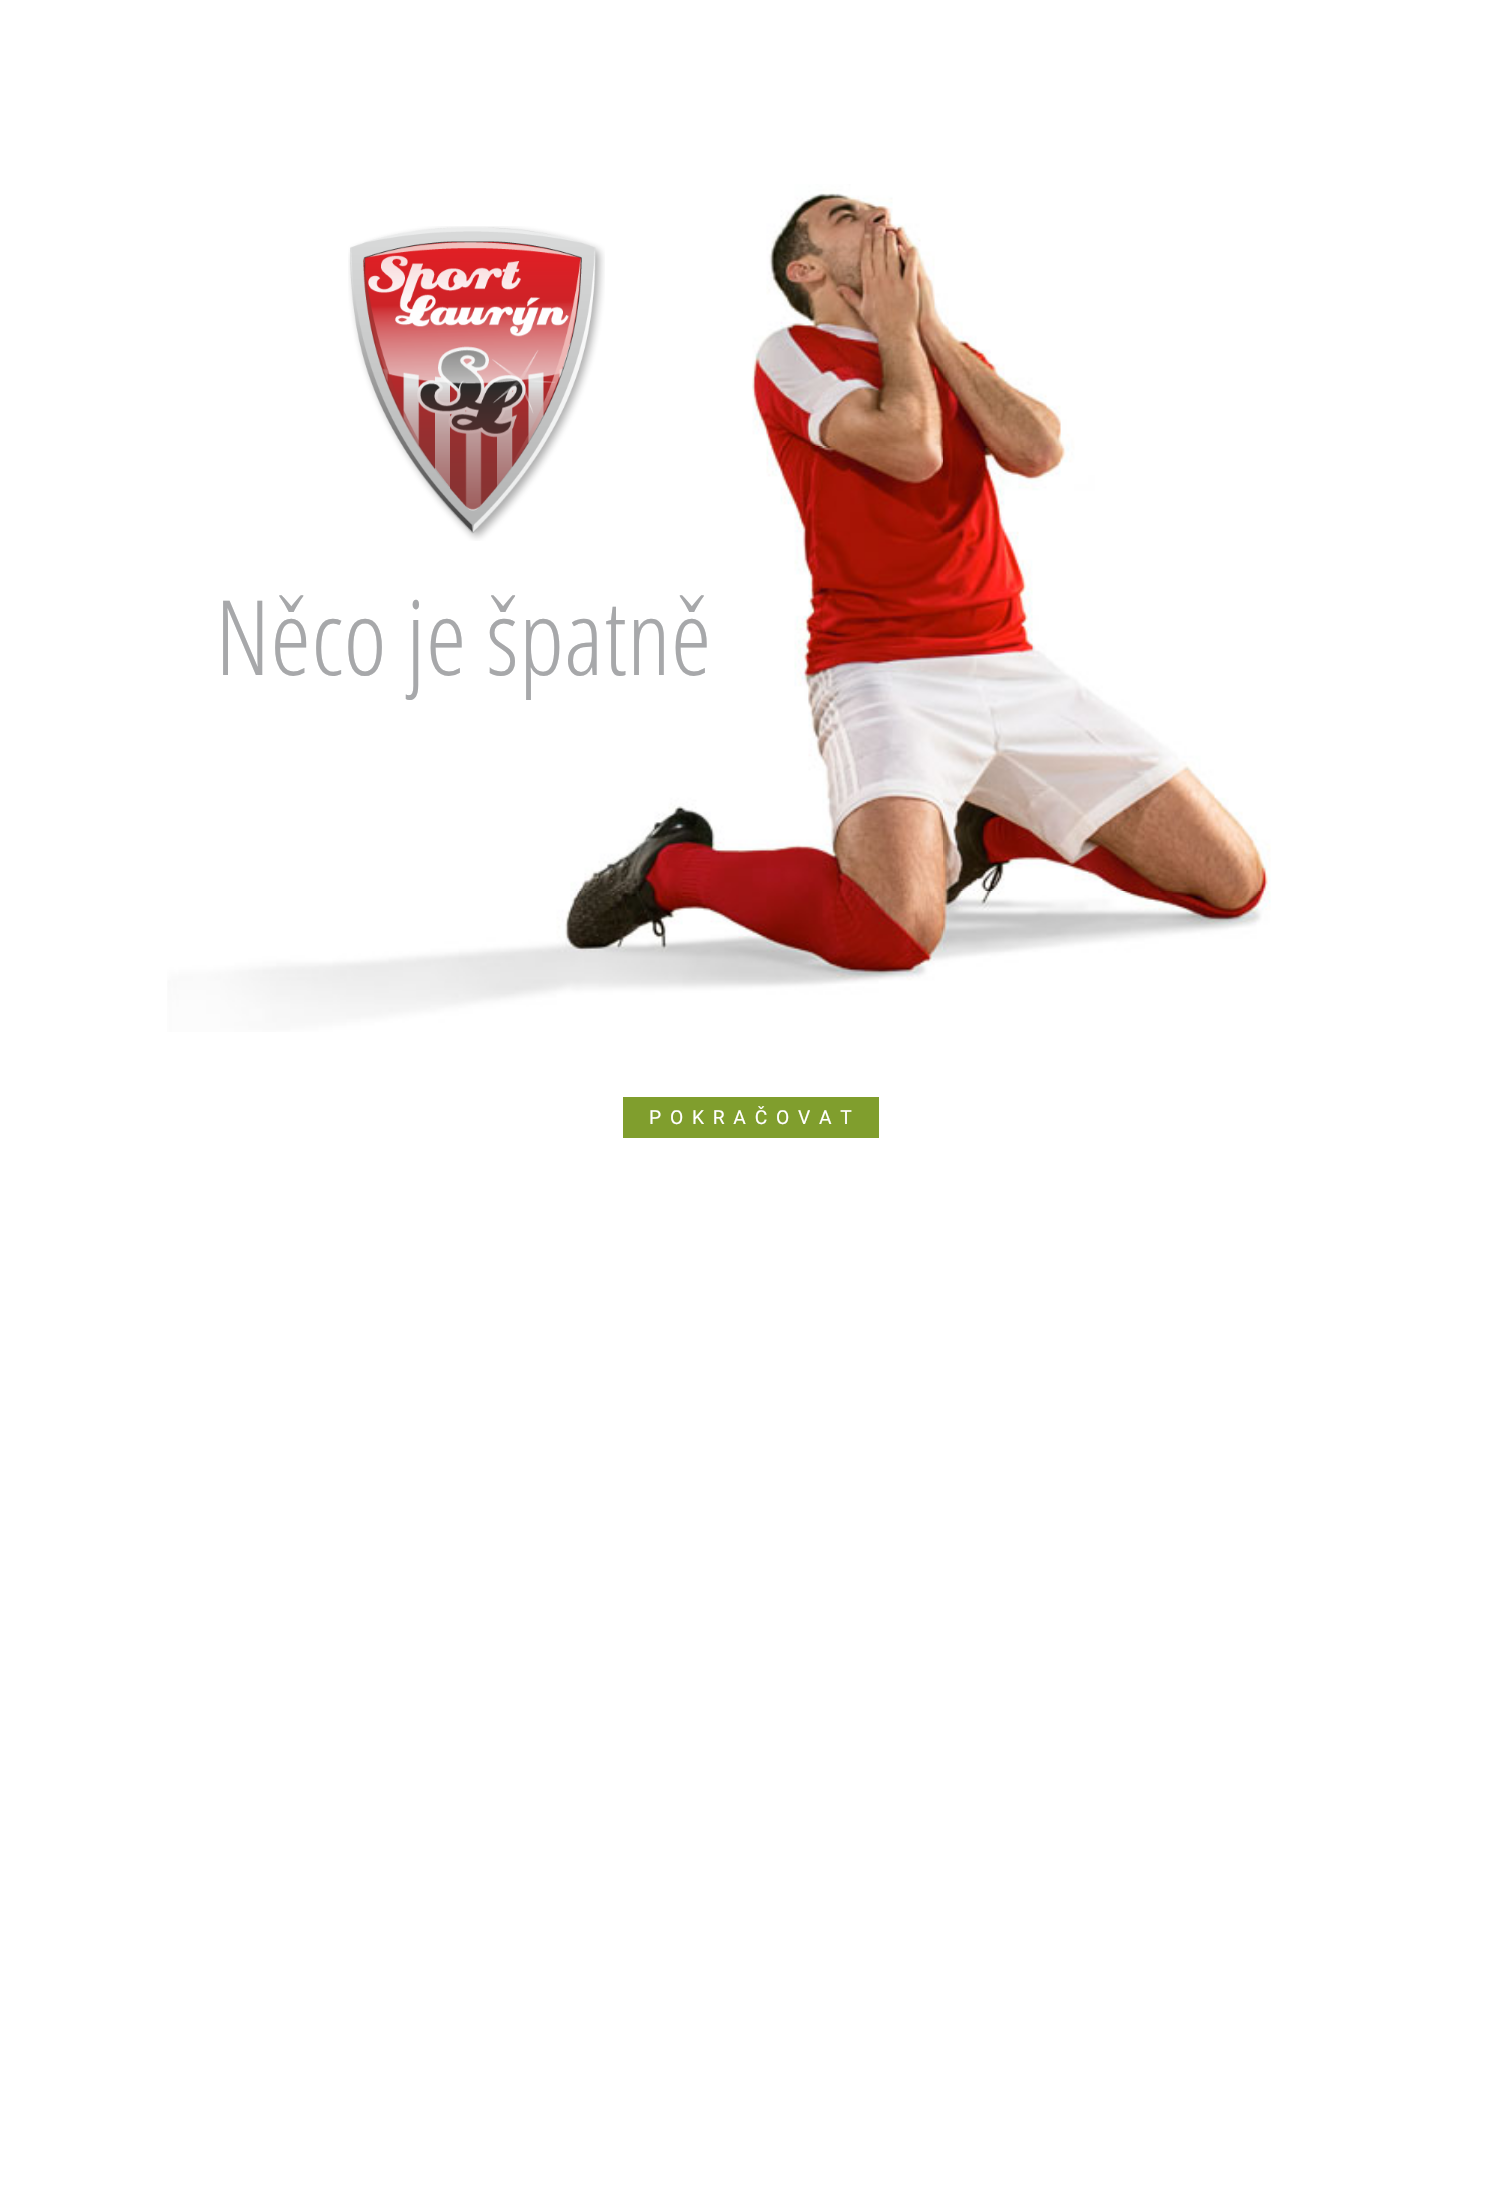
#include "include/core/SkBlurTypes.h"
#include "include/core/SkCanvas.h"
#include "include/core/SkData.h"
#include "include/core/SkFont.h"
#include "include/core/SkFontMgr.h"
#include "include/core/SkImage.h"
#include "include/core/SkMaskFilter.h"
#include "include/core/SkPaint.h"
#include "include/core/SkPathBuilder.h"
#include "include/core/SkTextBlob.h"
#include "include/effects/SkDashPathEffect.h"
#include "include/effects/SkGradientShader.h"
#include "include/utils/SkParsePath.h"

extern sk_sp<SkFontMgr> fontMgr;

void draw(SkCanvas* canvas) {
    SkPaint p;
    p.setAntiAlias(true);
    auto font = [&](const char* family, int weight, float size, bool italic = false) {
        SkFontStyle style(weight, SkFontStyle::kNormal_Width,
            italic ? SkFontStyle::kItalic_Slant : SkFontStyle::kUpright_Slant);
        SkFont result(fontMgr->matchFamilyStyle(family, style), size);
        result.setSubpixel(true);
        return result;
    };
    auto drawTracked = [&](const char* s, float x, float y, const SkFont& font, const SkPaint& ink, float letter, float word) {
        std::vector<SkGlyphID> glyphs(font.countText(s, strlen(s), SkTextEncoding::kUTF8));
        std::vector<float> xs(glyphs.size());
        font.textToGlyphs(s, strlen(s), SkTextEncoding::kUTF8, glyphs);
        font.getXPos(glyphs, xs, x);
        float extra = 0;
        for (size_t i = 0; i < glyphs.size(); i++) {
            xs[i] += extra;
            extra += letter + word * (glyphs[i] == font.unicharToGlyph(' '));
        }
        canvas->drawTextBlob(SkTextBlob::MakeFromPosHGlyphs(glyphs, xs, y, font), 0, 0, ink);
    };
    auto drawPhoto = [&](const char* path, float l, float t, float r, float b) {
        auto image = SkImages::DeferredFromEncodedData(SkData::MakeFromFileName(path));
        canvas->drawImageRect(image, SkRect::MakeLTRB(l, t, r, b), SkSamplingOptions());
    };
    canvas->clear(0xFFFFFFFF);
    drawPhoto("media/1.png", 167, 184, 1271, 1032);
    drawPhoto("media/2.png", 348, 226, 605, 541);
    auto font1 = font("Open Sans Condensed", 300, 104);
    p.setColor(0xFFA7A8AA);
    canvas->drawString("Něco je špatně", 215, 675, font1, p);
    p.setColor(0xFF809E2D);
    canvas->drawRect(SkRect::MakeLTRB(623, 1097, 879, 1138), p);
    auto font2 = font("Roboto", 400, 19.25f);
    p.setColor(0xFFFFFFFF);
    drawTracked("POKRAČOVAT", 649, 1124, font2, p, 8.75f, 0);
}
